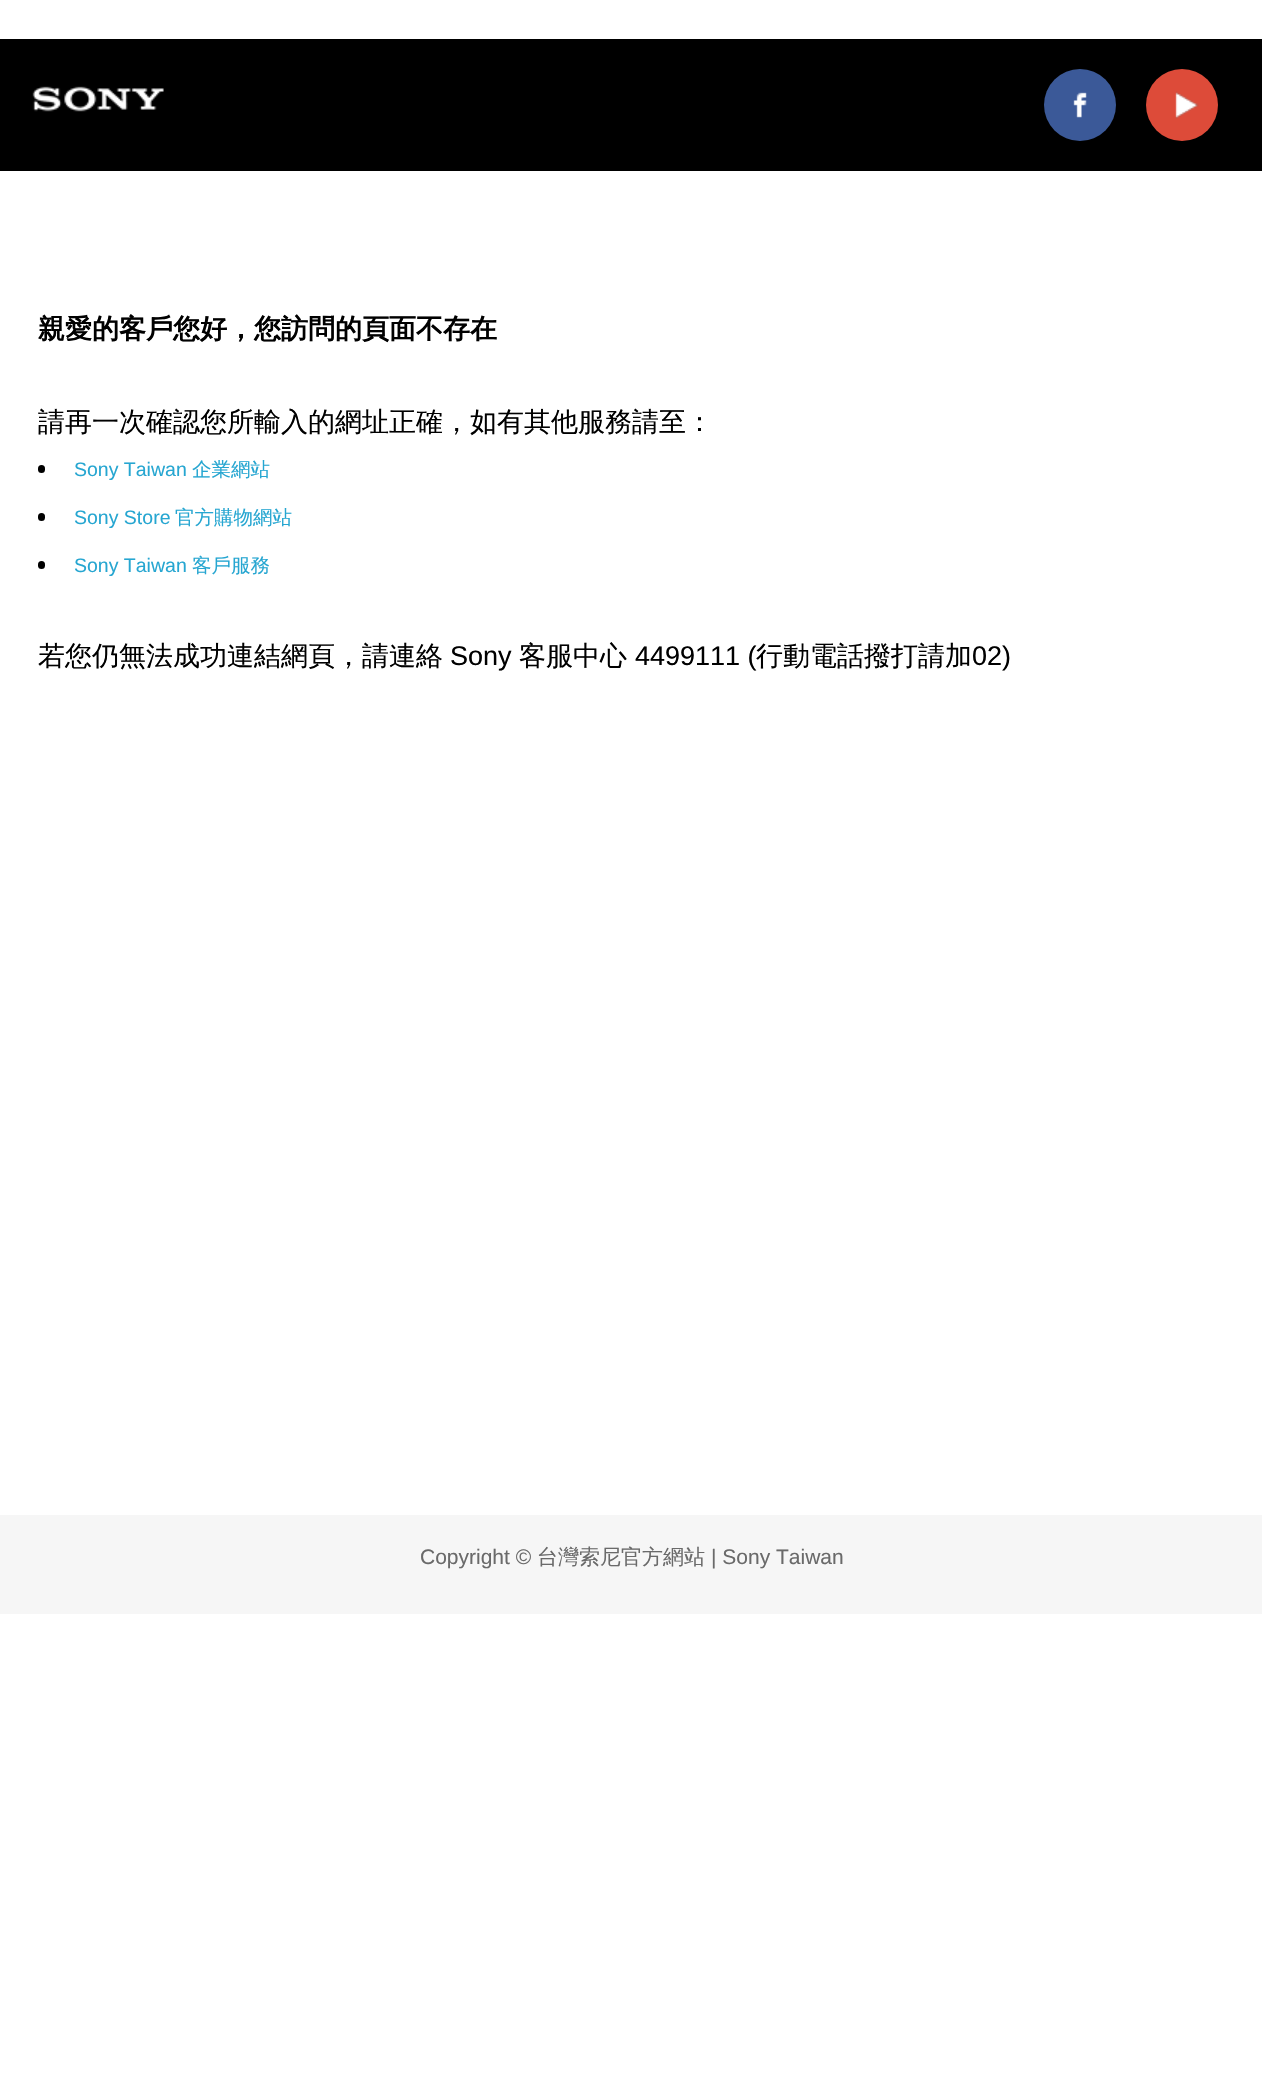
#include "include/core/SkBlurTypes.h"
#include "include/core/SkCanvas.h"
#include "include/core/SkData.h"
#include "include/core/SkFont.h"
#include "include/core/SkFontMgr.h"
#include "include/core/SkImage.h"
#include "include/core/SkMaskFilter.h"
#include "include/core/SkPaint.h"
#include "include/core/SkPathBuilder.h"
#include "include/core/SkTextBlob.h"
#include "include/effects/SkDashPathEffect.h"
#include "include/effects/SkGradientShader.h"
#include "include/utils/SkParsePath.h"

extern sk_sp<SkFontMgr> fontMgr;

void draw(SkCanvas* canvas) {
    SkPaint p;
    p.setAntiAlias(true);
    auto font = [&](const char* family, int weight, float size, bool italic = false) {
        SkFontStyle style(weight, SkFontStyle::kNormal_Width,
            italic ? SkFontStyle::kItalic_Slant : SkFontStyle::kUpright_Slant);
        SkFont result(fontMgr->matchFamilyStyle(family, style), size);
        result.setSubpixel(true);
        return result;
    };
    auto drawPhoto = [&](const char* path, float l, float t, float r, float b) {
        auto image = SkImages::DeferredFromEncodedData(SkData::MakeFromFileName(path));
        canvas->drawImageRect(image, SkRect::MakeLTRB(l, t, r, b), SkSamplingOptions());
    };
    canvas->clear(0xFFFFFFFF);
    p.setColor(0xFF000000);
    canvas->drawRect(SkRect::MakeLTRB(0, 39, 1262, 171), p);
    drawPhoto("media/1.png", 32, 86, 164, 112);
    p.setColor(0xFF3B5998);
    canvas->drawCircle(1080, 105, 36, p);
    drawPhoto("media/2.png", 1073, 92, 1087, 118);
    p.setColor(0xFFDD4B39);
    canvas->drawCircle(1182, 105, 36, p);
    drawPhoto("media/3.png", 1175, 91, 1199, 119);
    auto font1 = font("WenQuanYi Zen Hei", 700, 27);
    p.setColor(0xFF000000);
    canvas->drawString("親愛的客戶您好，您訪問的頁面不存在", 38, 338, font1, p);
    auto font2 = font("WenQuanYi Zen Hei", 500, 27);
    canvas->drawString("請再一次確認您所輸入的網址正確，如有其他服務請至：", 38, 431, font2, p);
    canvas->drawRoundRect(SkRect::MakeLTRB(38, 465, 45, 473), 3.5f, 3.5f, p);
    auto font3 = font("Liberation Sans", 400, 19.5f);
    p.setColor(0xFF26A6D1);
    canvas->drawString("Sony Taiwan", 74, 476, font3, p);
    auto font4 = font("WenQuanYi Zen Hei", 500, 19.5f);
    canvas->drawString("企業網站", 192, 476, font4, p);
    p.setColor(0xFF000000);
    canvas->drawRoundRect(SkRect::MakeLTRB(38, 513, 45, 521), 3.5f, 3.5f, p);
    p.setColor(0xFF26A6D1);
    canvas->drawString("Sony Store", 74, 524, font3, p);
    canvas->drawString("官方購物網站", 175, 524, font4, p);
    p.setColor(0xFF000000);
    canvas->drawRoundRect(SkRect::MakeLTRB(38, 561, 45, 569), 3.5f, 3.5f, p);
    p.setColor(0xFF26A6D1);
    canvas->drawString("Sony Taiwan", 74, 572, font3, p);
    canvas->drawString("客戶服務", 192, 572, font4, p);
    p.setColor(0xFF000000);
    canvas->drawString("若您仍無法成功連結網頁，請連絡", 38, 665, font2, p);
    auto font5 = font("Liberation Sans", 400, 27);
    canvas->drawString("Sony", 450, 665, font5, p);
    canvas->drawString("客服中心", 519, 665, font2, p);
    canvas->drawString("4499111 (", 635, 665, font5, p);
    canvas->drawString("行動電話撥打請加", 756, 665, font2, p);
    canvas->drawString("02)", 972, 665, font5, p);
    p.setColor(0xFFF6F6F6);
    canvas->drawRect(SkRect::MakeLTRB(0, 1515, 1262, 1614), p);
    auto font6 = font("Liberation Sans", 400, 21);
    p.setColor(0xFF6A6A6A);
    canvas->drawString("Copyright ©", 420, 1564, font6, p);
    auto font7 = font("WenQuanYi Zen Hei", 500, 21);
    canvas->drawString("台灣索尼官方網站", 537, 1564, font7, p);
    canvas->drawString("| Sony Taiwan", 711, 1564, font6, p);
}
